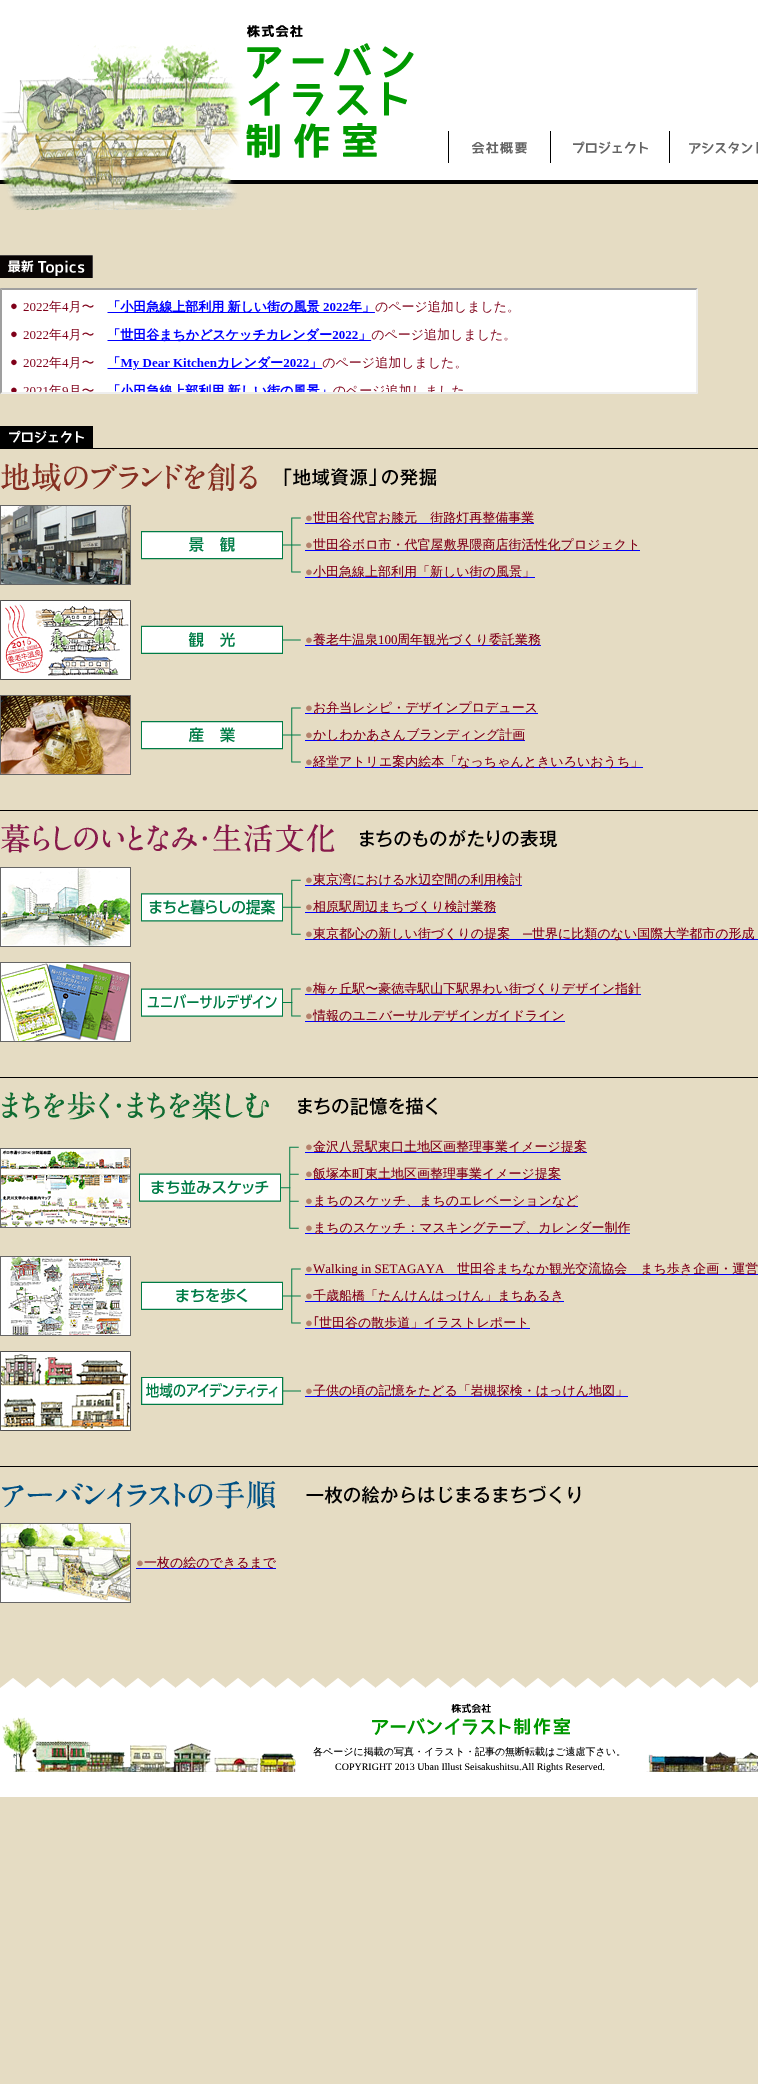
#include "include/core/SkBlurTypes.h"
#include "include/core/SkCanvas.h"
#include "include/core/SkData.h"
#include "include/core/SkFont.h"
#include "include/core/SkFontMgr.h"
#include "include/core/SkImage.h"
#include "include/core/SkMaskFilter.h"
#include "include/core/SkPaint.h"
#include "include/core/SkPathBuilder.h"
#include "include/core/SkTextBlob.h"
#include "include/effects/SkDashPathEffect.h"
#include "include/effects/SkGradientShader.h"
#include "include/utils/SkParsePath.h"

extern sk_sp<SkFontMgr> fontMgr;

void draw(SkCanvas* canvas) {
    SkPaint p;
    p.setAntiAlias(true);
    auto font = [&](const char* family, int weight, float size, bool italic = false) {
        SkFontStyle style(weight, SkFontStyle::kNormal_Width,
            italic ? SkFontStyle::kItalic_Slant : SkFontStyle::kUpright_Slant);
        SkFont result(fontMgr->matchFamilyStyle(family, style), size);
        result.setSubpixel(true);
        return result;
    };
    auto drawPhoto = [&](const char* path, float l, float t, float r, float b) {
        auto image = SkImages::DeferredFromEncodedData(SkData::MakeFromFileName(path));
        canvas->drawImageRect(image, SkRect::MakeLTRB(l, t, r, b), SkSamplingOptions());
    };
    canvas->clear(0xFFFFFFFF);
    drawPhoto("media/1.png", 0, 180, 758, 2084);
    drawPhoto("media/2.png", 0, 45, 241, 210);
    drawPhoto("media/3.png", 0, 255, 93, 278);
    drawPhoto("media/4.png", 246, 24, 414, 158);
    p.setColor(0xFF000000);
    canvas->drawRect(SkRect::MakeLTRB(448, 131, 449, 163), p);
    drawPhoto("media/5.png", 472, 142, 527, 154);
    canvas->drawRect(SkRect::MakeLTRB(550, 131, 551, 163), p);
    drawPhoto("media/6.png", 573, 141, 648, 154);
    canvas->drawRect(SkRect::MakeLTRB(669, 131, 670, 163), p);
    drawPhoto("media/7.png", 689, 141, 758, 154);
    p.setColor(0xFF9F9F9F);
    canvas->drawPath(SkPathBuilder().moveTo(0, 288).lineTo(698, 288).lineTo(696, 290).lineTo(2, 290).close().detach(), p);
    p.setColor(0xFFEEEEEE);
    canvas->drawPath(SkPathBuilder().moveTo(698, 288).lineTo(698, 394).lineTo(696, 392).lineTo(696, 290).close().detach(), p);
    canvas->drawPath(SkPathBuilder().moveTo(698, 394).lineTo(0, 394).lineTo(2, 392).lineTo(696, 392).close().detach(), p);
    p.setColor(0xFF9F9F9F);
    canvas->drawPath(SkPathBuilder().moveTo(0, 394).lineTo(0, 288).lineTo(2, 290).lineTo(2, 392).close().detach(), p);
    drawPhoto("media/8.png", 2, 290, 696, 392);
    drawPhoto("media/9.png", 0, 426, 93, 448);
    p.setColor(0xFF000000);
    canvas->drawRect(SkRect::MakeLTRB(0, 448, 758, 449), p);
    drawPhoto("media/10.png", 1, 462, 437, 492);
    drawPhoto("media/11.png", 0, 505, 131, 585);
    drawPhoto("media/12.png", 141, 517, 301, 573);
    auto font1 = font("Liberation Serif", 400, 13);
    p.setColor(0xFFB4816C);
    canvas->drawString("●", 305, 522, font1, p);
    p.setColor(0xFF0000FF);
    canvas->drawRect(SkRect::MakeLTRB(305, 523, 534, 524), p);
    auto font2 = font("WenQuanYi Zen Hei", 500, 13);
    p.setColor(0xFF7F0019);
    canvas->drawString("世田谷代官お膝元　街路灯再整備事業", 313, 522, font2, p);
    p.setColor(0xFFB4816C);
    canvas->drawString("●", 305, 549, font1, p);
    p.setColor(0xFF0000FF);
    canvas->drawRect(SkRect::MakeLTRB(305, 550, 640, 551), p);
    p.setColor(0xFF7F0019);
    canvas->drawString("世田谷ボロ市・代官屋敷界隈商店街活性化プロジェクト", 313, 549, font2, p);
    p.setColor(0xFFB4816C);
    canvas->drawString("●", 305, 576, font1, p);
    p.setColor(0xFF0000FF);
    canvas->drawRect(SkRect::MakeLTRB(305, 577, 535, 578), p);
    p.setColor(0xFF7F0019);
    canvas->drawString("小田急線上部利用「新しい街の風景」", 313, 576, font2, p);
    drawPhoto("media/13.png", 0, 600, 131, 680);
    drawPhoto("media/14.png", 141, 625, 301, 654);
    p.setColor(0xFFB4816C);
    canvas->drawString("●", 305, 644, font1, p);
    p.setColor(0xFF0000FF);
    canvas->drawRect(SkRect::MakeLTRB(305, 645, 541, 646), p);
    p.setColor(0xFF7F0019);
    canvas->drawString("養老牛温泉", 313, 644, font2, p);
    canvas->drawString("100", 378, 644, font1, p);
    canvas->drawString("周年観光づくり委託業務", 397, 644, font2, p);
    drawPhoto("media/15.png", 0, 695, 131, 775);
    drawPhoto("media/16.png", 141, 707, 301, 763);
    p.setColor(0xFFB4816C);
    canvas->drawString("●", 305, 712, font1, p);
    p.setColor(0xFF0000FF);
    canvas->drawRect(SkRect::MakeLTRB(305, 713, 538, 714), p);
    p.setColor(0xFF7F0019);
    canvas->drawString("お弁当レシピ・デザインプロデュース", 313, 712, font2, p);
    p.setColor(0xFFB4816C);
    canvas->drawString("●", 305, 739, font1, p);
    p.setColor(0xFF0000FF);
    canvas->drawRect(SkRect::MakeLTRB(305, 740, 525, 741), p);
    p.setColor(0xFF7F0019);
    canvas->drawString("かしわかあさんブランディング計画", 313, 739, font2, p);
    p.setColor(0xFFB4816C);
    canvas->drawString("●", 305, 766, font1, p);
    p.setColor(0xFF0000FF);
    canvas->drawRect(SkRect::MakeLTRB(305, 767, 643, 768), p);
    p.setColor(0xFF7F0019);
    canvas->drawString("経堂アトリエ案内絵本「なっちゃんときいろいおうち」", 313, 766, font2, p);
    p.setColor(0xFF000000);
    canvas->drawRect(SkRect::MakeLTRB(0, 810, 758, 811), p);
    drawPhoto("media/17.png", 1, 824, 558, 853);
    drawPhoto("media/18.png", 0, 867, 131, 947);
    drawPhoto("media/19.png", 141, 879, 301, 935);
    p.setColor(0xFFB4816C);
    canvas->drawString("●", 305, 884, font1, p);
    p.setColor(0xFF0000FF);
    canvas->drawRect(SkRect::MakeLTRB(305, 885, 522, 886), p);
    p.setColor(0xFF7F0019);
    canvas->drawString("東京湾における水辺空間の利用検討", 313, 884, font2, p);
    p.setColor(0xFFB4816C);
    canvas->drawString("●", 305, 911, font1, p);
    p.setColor(0xFF0000FF);
    canvas->drawRect(SkRect::MakeLTRB(305, 912, 496, 913), p);
    p.setColor(0xFF7F0019);
    canvas->drawString("相原駅周辺まちづくり検討業務", 313, 911, font2, p);
    p.setColor(0xFFB4816C);
    canvas->drawString("●", 305, 938, font1, p);
    p.setColor(0xFF0000FF);
    canvas->drawRect(SkRect::MakeLTRB(305, 939, 758, 940), p);
    p.setColor(0xFF7F0019);
    canvas->drawString("東京都心の新しい街づくりの提案", 313, 938, font2, p);
    canvas->drawString("─", 523, 938, font1, p);
    canvas->drawString("世界に比類のない国際大学都市の形成", 532, 938, font2, p);
    drawPhoto("media/20.png", 0, 962, 131, 1042);
    drawPhoto("media/21.png", 141, 988, 301, 1017);
    p.setColor(0xFFB4816C);
    canvas->drawString("●", 305, 993, font1, p);
    p.setColor(0xFF0000FF);
    canvas->drawRect(SkRect::MakeLTRB(305, 994, 641, 995), p);
    p.setColor(0xFF7F0019);
    canvas->drawString("梅ヶ丘駅〜豪徳寺駅山下駅界わい街づくりデザイン指針", 313, 993, font2, p);
    p.setColor(0xFFB4816C);
    canvas->drawString("●", 305, 1020, font1, p);
    p.setColor(0xFF0000FF);
    canvas->drawRect(SkRect::MakeLTRB(305, 1021, 565, 1022), p);
    p.setColor(0xFF7F0019);
    canvas->drawString("情報のユニバーサルデザインガイドライン", 313, 1020, font2, p);
    p.setColor(0xFF000000);
    canvas->drawRect(SkRect::MakeLTRB(0, 1077, 758, 1078), p);
    drawPhoto("media/22.png", 2, 1091, 438, 1120);
    drawPhoto("media/23.png", 0, 1148, 131, 1228);
    drawPhoto("media/24.png", 139, 1146, 299, 1229);
    p.setColor(0xFFB4816C);
    canvas->drawString("●", 305, 1151, font1, p);
    p.setColor(0xFF0000FF);
    canvas->drawRect(SkRect::MakeLTRB(305, 1152, 587, 1153), p);
    p.setColor(0xFF7F0019);
    canvas->drawString("金沢八景駅東口土地区画整理事業イメージ提案", 313, 1151, font2, p);
    p.setColor(0xFFB4816C);
    canvas->drawString("●", 305, 1178, font1, p);
    p.setColor(0xFF0000FF);
    canvas->drawRect(SkRect::MakeLTRB(305, 1179, 561, 1180), p);
    p.setColor(0xFF7F0019);
    canvas->drawString("飯塚本町東土地区画整理事業イメージ提案", 313, 1178, font2, p);
    p.setColor(0xFFB4816C);
    canvas->drawString("●", 305, 1205, font1, p);
    p.setColor(0xFF0000FF);
    canvas->drawRect(SkRect::MakeLTRB(305, 1206, 578, 1207), p);
    p.setColor(0xFF7F0019);
    canvas->drawString("まちのスケッチ、まちのエレベーションなど", 313, 1205, font2, p);
    p.setColor(0xFFB4816C);
    canvas->drawString("●", 305, 1232, font1, p);
    p.setColor(0xFF0000FF);
    canvas->drawRect(SkRect::MakeLTRB(305, 1233, 630, 1234), p);
    p.setColor(0xFF7F0019);
    canvas->drawString("まちのスケッチ：マスキングテープ、カレンダー制作", 313, 1232, font2, p);
    drawPhoto("media/25.png", 0, 1256, 131, 1336);
    drawPhoto("media/26.png", 141, 1268, 301, 1324);
    p.setColor(0xFFB4816C);
    canvas->drawString("●", 305, 1273, font1, p);
    p.setColor(0xFF0000FF);
    canvas->drawRect(SkRect::MakeLTRB(305, 1274, 758, 1275), p);
    p.setColor(0xFF7F0019);
    canvas->drawString("Walking in SETAGAYA", 313, 1273, font1, p);
    canvas->drawString("世田谷まちなか観光交流協会　まち歩き企画・運営", 457, 1273, font2, p);
    p.setColor(0xFFB4816C);
    canvas->drawString("●", 305, 1300, font1, p);
    p.setColor(0xFF0000FF);
    canvas->drawRect(SkRect::MakeLTRB(305, 1301, 564, 1302), p);
    p.setColor(0xFF7F0019);
    canvas->drawString("千歳船橋「たんけんはっけん」まちあるき", 313, 1300, font2, p);
    p.setColor(0xFFB4816C);
    canvas->drawString("●", 305, 1327, font1, p);
    p.setColor(0xFF0000FF);
    canvas->drawRect(SkRect::MakeLTRB(305, 1328, 530, 1329), p);
    auto font3 = font("IPAPGothic", 400, 13);
    p.setColor(0xFF7F0019);
    canvas->drawString("｢", 313, 1327, font3, p);
    canvas->drawString("世田谷の散歩道」イラストレポート", 319, 1327, font2, p);
    drawPhoto("media/27.png", 0, 1351, 131, 1431);
    drawPhoto("media/28.png", 141, 1377, 301, 1405);
    p.setColor(0xFFB4816C);
    canvas->drawString("●", 305, 1395, font1, p);
    p.setColor(0xFF0000FF);
    canvas->drawRect(SkRect::MakeLTRB(305, 1396, 628, 1397), p);
    p.setColor(0xFF7F0019);
    canvas->drawString("子供の頃の記憶をたどる「岩槻探検・はっけん地図」", 313, 1395, font2, p);
    p.setColor(0xFF000000);
    canvas->drawRect(SkRect::MakeLTRB(0, 1466, 758, 1467), p);
    drawPhoto("media/29.png", 2, 1481, 581, 1509);
    drawPhoto("media/30.png", 0, 1523, 131, 1603);
    p.setColor(0xFFB4816C);
    canvas->drawString("●", 136, 1567, font1, p);
    p.setColor(0xFF0000FF);
    canvas->drawRect(SkRect::MakeLTRB(136, 1568, 276, 1569), p);
    p.setColor(0xFF7F0019);
    canvas->drawString("一枚の絵のできるまで", 144, 1567, font2, p);
    drawPhoto("media/31.png", 0, 1678, 758, 1797);
    drawPhoto("media/32.png", 2, 1717, 296, 1772);
    drawPhoto("media/33.png", 372, 1703, 570, 1735);
    drawPhoto("media/34.png", 646, 1751, 758, 1772);
    auto font4 = font("WenQuanYi Zen Hei", 500, 10);
    p.setColor(0xFF000000);
    canvas->drawString("各ページに掲載の写真・イラスト・記事の無断転載はご遠慮下さい。", 313, 1755, font4, p);
    auto font5 = font("Liberation Serif", 400, 10);
    canvas->drawString("COPYRIGHT 2013 Uban Illust Seisakushitsu.All Rights Reserved.", 335, 1770, font5, p);
}
